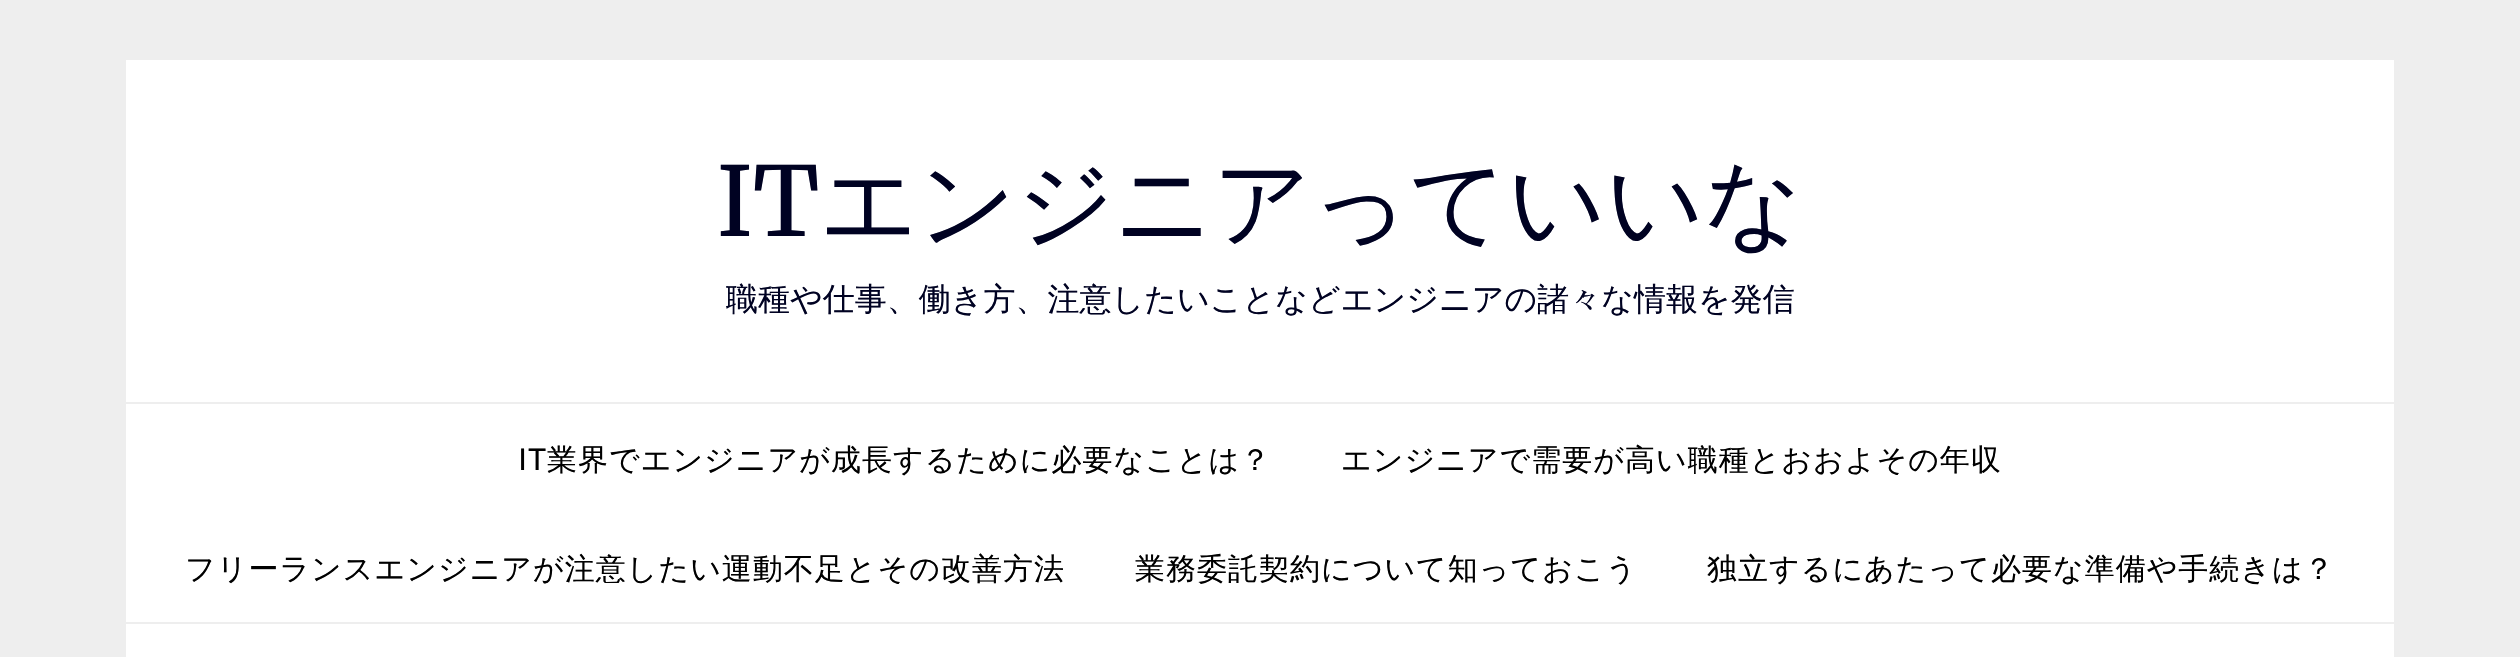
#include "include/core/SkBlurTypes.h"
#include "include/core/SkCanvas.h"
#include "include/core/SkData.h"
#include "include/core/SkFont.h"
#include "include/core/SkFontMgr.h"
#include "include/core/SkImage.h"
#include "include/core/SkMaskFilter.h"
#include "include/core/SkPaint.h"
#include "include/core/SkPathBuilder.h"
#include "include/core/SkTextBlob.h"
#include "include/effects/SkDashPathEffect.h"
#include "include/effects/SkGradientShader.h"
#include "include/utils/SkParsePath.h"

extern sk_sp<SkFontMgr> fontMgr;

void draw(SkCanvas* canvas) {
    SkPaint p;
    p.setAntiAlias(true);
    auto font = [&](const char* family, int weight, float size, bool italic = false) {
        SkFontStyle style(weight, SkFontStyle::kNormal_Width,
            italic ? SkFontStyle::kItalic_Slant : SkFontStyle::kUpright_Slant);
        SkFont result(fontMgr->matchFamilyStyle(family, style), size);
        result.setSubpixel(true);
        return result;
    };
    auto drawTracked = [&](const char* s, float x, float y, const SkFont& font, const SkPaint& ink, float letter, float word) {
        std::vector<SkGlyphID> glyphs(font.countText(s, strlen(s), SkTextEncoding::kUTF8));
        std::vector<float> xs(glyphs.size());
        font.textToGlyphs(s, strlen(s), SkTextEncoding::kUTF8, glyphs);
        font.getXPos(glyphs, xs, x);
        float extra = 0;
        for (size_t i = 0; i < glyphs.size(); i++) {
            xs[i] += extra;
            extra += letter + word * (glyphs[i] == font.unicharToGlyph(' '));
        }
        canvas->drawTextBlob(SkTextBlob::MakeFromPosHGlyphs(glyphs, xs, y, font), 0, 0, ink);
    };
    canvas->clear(0xFFEEEEEE);
    p.setColor(0xFFFFFFFF);
    canvas->drawRect(SkRect::MakeLTRB(126, 60, 2394, 402), p);
    auto font1 = font("Merriweather", 400, 96);
    p.setColor(0xFF000222);
    canvas->drawString("IT", 717, 236, font1, p);
    auto font2 = font("WenQuanYi Zen Hei", 500, 96);
    canvas->drawString("エンジニアっていいな", 820, 236, font2, p);
    auto font3 = font("WenQuanYi Zen Hei", 500, 32);
    canvas->drawString("職種や仕事、働き方、注意したいことなどエンジニアの諸々な情報を発信", 726, 310, font3, p);
    p.setColor(0xFFFFFFFF);
    canvas->drawRect(SkRect::MakeLTRB(126, 404, 2394, 622), p);
    auto font4 = font("Lato", 400, 30);
    p.setColor(0xFF000000);
    drawTracked("IT", 518, 470, font4, p, 1, 0);
    auto font5 = font("WenQuanYi Zen Hei", 500, 30);
    {
        const struct { const char* s; float x, y; } items[] = {
            {"業界でエンジニアが成長するために必要なことは？", 547, 470},
            {"エンジニアで需要が高い職種とおおよその年収", 1341, 470},
            {"フリーランスエンジニアが注意したい運動不足とその改善方法", 185, 579},
            {"業務委託契約について知っておこう", 1135, 579},
            {"独立するにあたって必要な準備や手続きは？", 1707, 579},
        };
        for (auto [s, x, y] : items) {
            drawTracked(s, x, y, font5, p, 1, 0);
        }
    }
    p.setColor(0xFFFFFFFF);
    canvas->drawRect(SkRect::MakeLTRB(126, 624, 2394, 657), p);
}
